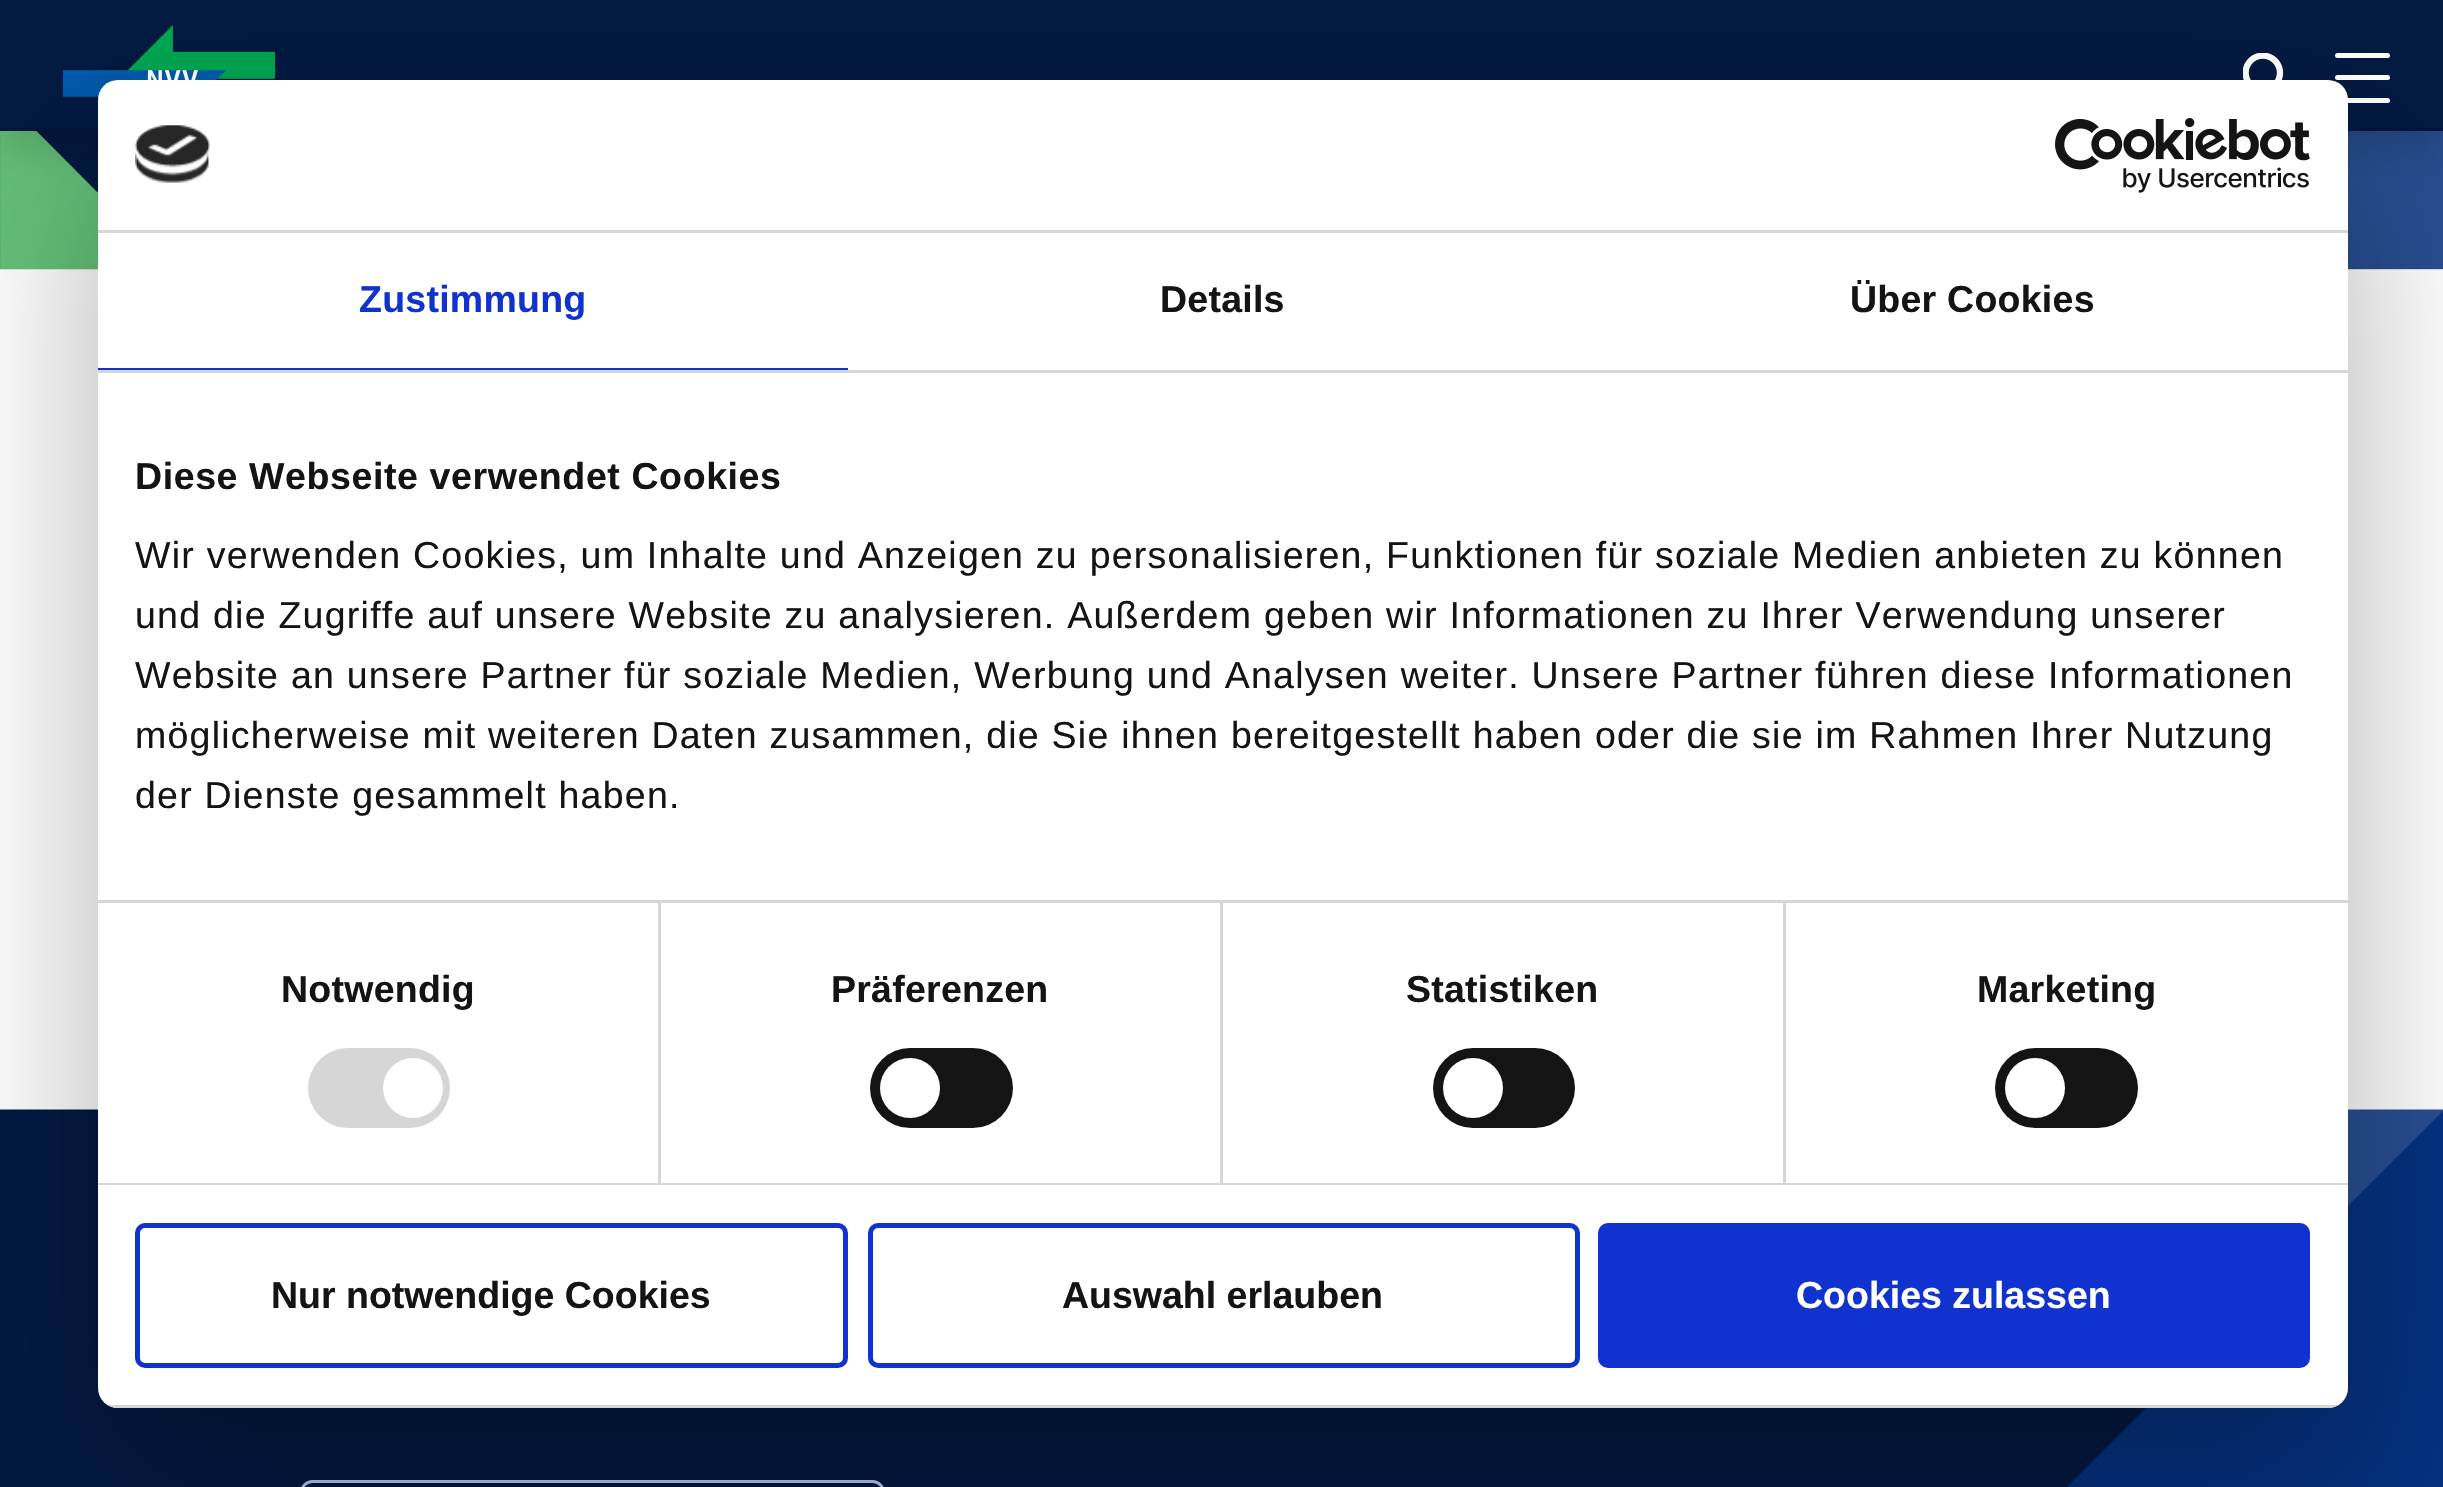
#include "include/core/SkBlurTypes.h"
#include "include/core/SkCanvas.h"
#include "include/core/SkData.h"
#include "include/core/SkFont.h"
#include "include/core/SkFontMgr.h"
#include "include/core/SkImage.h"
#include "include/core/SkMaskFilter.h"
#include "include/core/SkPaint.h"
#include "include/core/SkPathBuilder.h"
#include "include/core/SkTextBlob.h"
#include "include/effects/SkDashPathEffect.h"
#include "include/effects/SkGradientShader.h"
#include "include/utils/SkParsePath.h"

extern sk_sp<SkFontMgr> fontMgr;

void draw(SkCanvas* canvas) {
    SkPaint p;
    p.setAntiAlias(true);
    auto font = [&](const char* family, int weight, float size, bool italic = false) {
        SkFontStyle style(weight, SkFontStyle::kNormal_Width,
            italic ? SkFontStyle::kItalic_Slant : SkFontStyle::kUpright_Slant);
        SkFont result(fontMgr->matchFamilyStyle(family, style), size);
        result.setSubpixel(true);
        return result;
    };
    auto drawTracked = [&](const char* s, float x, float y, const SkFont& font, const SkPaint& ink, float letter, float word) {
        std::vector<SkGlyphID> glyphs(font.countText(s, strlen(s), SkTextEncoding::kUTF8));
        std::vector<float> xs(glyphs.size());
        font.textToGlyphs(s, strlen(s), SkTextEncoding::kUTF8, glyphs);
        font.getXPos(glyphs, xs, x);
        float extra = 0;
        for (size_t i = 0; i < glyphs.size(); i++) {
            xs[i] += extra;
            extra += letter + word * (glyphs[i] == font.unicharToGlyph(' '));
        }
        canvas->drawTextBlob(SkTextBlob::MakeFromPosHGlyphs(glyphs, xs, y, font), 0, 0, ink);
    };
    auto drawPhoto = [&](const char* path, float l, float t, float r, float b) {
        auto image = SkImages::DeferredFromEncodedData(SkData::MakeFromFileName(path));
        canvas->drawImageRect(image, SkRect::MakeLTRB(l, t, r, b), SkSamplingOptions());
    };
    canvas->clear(0xFFFFFFFF);
    drawPhoto("media/3.png", 0, 131, 2443, 270);
    p.setColor(0x26000000);
    p.setMaskFilter(SkMaskFilter::MakeBlur(kNormal_SkBlurStyle, 20));
    canvas->drawRect(SkRect::MakeLTRB(0, 20, 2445, 150), p);
    p.setMaskFilter(nullptr);
    p.setColor(0xFF00143D);
    canvas->drawRect(SkRect::MakeLTRB(0, 128, 2443, 131), p);
    p.setColor(0xFF021941);
    canvas->drawRect(SkRect::MakeLTRB(0, 0, 2443, 128), p);
    drawPhoto("media/1.png", 63, 25, 275, 97);
    drawPhoto("media/2.png", 2243, 53, 2284, 80);
    p.setColor(0xFFFFFFFF);
    canvas->drawRoundRect(SkRect::MakeLTRB(2335, 53, 2390, 58), 2.5f, 2.5f, p);
    canvas->drawRoundRect(SkRect::MakeLTRB(2335, 75, 2390, 80), 2.5f, 2.5f, p);
    canvas->drawRoundRect(SkRect::MakeLTRB(2335, 98, 2390, 103), 2.5f, 2.5f, p);
    drawPhoto("media/4.png", 0, 1109, 2443, 1487);
    p.setStyle(SkPaint::kStroke_Style);
    p.setStrokeWidth(3);
    p.setColor(0xFFB8CBEB);
    canvas->drawRoundRect(SkRect::MakeLTRB(301.5f, 1481.5f, 883.5f, 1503.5f), 13.5f, 13.5f, p);
    p.setStyle(SkPaint::kFill_Style);
    p.setColor(0x4D000000);
    p.setMaskFilter(SkMaskFilter::MakeBlur(kNormal_SkBlurStyle, 85));
    canvas->drawRoundRect(SkRect::MakeLTRB(98, 160, 2348, 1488), 20, 20, p);
    p.setMaskFilter(nullptr);
    p.setColor(0xFFFFFFFF);
    canvas->drawRoundRect(SkRect::MakeLTRB(98, 80, 2348, 1408), 20, 20, p);
    p.setColor(0xFFD6D6D6);
    canvas->drawRect(SkRect::MakeLTRB(98, 230, 2348, 233), p);
    drawPhoto("media/5.png", 135, 125, 210, 183);
    drawPhoto("media/6.png", 2055, 118, 2310, 193);
    canvas->drawRect(SkRect::MakeLTRB(98, 370, 2348, 373), p);
    p.setColor(0xFF1032CF);
    canvas->drawRect(SkRect::MakeLTRB(98, 368, 848, 370), p);
    auto font1 = font("Liberation Sans", 700, 37.5f);
    drawTracked("Zustimmung", 359, 312, font1, p, 0.25f, 0);
    p.setColor(0xFF141414);
    drawTracked("Details", 1160, 312, font1, p, 0.25f, 0);
    drawTracked("Über Cookies", 1850, 312, font1, p, 0.25f, 0);
    p.setColor(0xFFD6D6D6);
    canvas->drawRect(SkRect::MakeLTRB(98, 900, 2348, 903), p);
    p.setColor(0xFF141414);
    drawTracked("Diese Webseite verwendet Cookies", 135, 489, font1, p, 0.6f, 0);
    auto font2 = font("Liberation Sans", 400, 37.5f);
    {
        const struct { const char* s; float x, y; } items[] = {
            {"Wir verwenden Cookies, um Inhalte und Anzeigen zu personalisieren, Funktionen für soziale Medien anbieten zu können", 135, 568},
            {"und die Zugriffe auf unsere Website zu analysieren. Außerdem geben wir Informationen zu Ihrer Verwendung unserer", 135, 628},
            {"Website an unsere Partner für soziale Medien, Werbung und Analysen weiter. Unsere Partner führen diese Informationen", 135, 688},
            {"möglicherweise mit weiteren Daten zusammen, die Sie ihnen bereitgestellt haben oder die sie im Rahmen Ihrer Nutzung", 135, 748},
            {"der Dienste gesammelt haben.", 135, 808},
        };
        for (auto [s, x, y] : items) {
            drawTracked(s, x, y, font2, p, 1.25f, 0);
        }
    }
    p.setColor(0xFFD6D6D6);
    canvas->drawRect(SkRect::MakeLTRB(98, 1183, 2348, 1185), p);
    canvas->drawRect(SkRect::MakeLTRB(658, 903, 661, 1183), p);
    p.setColor(0xFF141414);
    drawTracked("Notwendig", 281, 1002, font1, p, 0.25f, 0);
    p.setColor(0xFFD6D6D6);
    canvas->drawRoundRect(SkRect::MakeLTRB(308, 1048, 450, 1128), 40, 40, p);
    p.setColor(0xFFFFFFFF);
    canvas->drawCircle(413, 1088, 30, p);
    p.setColor(0xFFD6D6D6);
    canvas->drawRect(SkRect::MakeLTRB(1220, 903, 1223, 1183), p);
    p.setColor(0xFF141414);
    drawTracked("Präferenzen", 831, 1002, font1, p, 0.25f, 0);
    canvas->drawRoundRect(SkRect::MakeLTRB(870, 1048, 1013, 1128), 40, 40, p);
    p.setColor(0xFFFFFFFF);
    canvas->drawCircle(910, 1088, 30, p);
    p.setColor(0xFFD6D6D6);
    canvas->drawRect(SkRect::MakeLTRB(1783, 903, 1786, 1183), p);
    p.setColor(0xFF141414);
    drawTracked("Statistiken", 1406, 1002, font1, p, 0.25f, 0);
    canvas->drawRoundRect(SkRect::MakeLTRB(1433, 1048, 1575, 1128), 40, 40, p);
    p.setColor(0xFFFFFFFF);
    canvas->drawCircle(1473, 1088, 30, p);
    p.setColor(0xFF141414);
    drawTracked("Marketing", 1977, 1002, font1, p, 0.25f, 0);
    canvas->drawRoundRect(SkRect::MakeLTRB(1995, 1048, 2138, 1128), 40, 40, p);
    p.setColor(0xFFFFFFFF);
    canvas->drawCircle(2035, 1088, 30, p);
    canvas->save();
    canvas->clipPath(SkPathBuilder().moveTo(118, 80).lineTo(2328, 80).cubicTo(2339, 80, 2348, 89, 2348, 100).lineTo(2348, 1388).cubicTo(2348, 1399, 2339, 1408, 2328, 1408).lineTo(118, 1408).cubicTo(107, 1408, 98, 1399, 98, 1388).lineTo(98, 100).cubicTo(98, 89, 107, 80, 118, 80).close().detach(), true);
    p.setColor(0xFFD6D6D6);
    canvas->drawRect(SkRect::MakeLTRB(107, 1405, 2339, 1408), p);
    canvas->restore();
    p.setStyle(SkPaint::kStroke_Style);
    p.setStrokeWidth(5);
    p.setColor(0xFF1032CF);
    canvas->drawRoundRect(SkRect::MakeLTRB(137.5f, 1225.5f, 845.5f, 1365.5f), 7.5f, 7.5f, p);
    p.setStyle(SkPaint::kFill_Style);
    p.setColor(0xFF141414);
    canvas->drawString("Nur notwendige Cookies", 271, 1308, font1, p);
    p.setStyle(SkPaint::kStroke_Style);
    p.setColor(0xFF1032CF);
    canvas->drawRoundRect(SkRect::MakeLTRB(870.5f, 1225.5f, 1577.5f, 1365.5f), 7.5f, 7.5f, p);
    p.setStyle(SkPaint::kFill_Style);
    p.setColor(0xFF141414);
    canvas->drawString("Auswahl erlauben", 1062, 1308, font1, p);
    p.setColor(0xFF1032CF);
    canvas->drawRoundRect(SkRect::MakeLTRB(1600.5f, 1225.5f, 2307.5f, 1365.5f), 7.5f, 7.5f, p);
    p.setStyle(SkPaint::kStroke_Style);
    canvas->drawRoundRect(SkRect::MakeLTRB(1600.5f, 1225.5f, 2307.5f, 1365.5f), 7.5f, 7.5f, p);
    p.setStyle(SkPaint::kFill_Style);
    p.setColor(0xFFFFFFFF);
    canvas->drawString("Cookies zulassen", 1796, 1308, font1, p);
}
